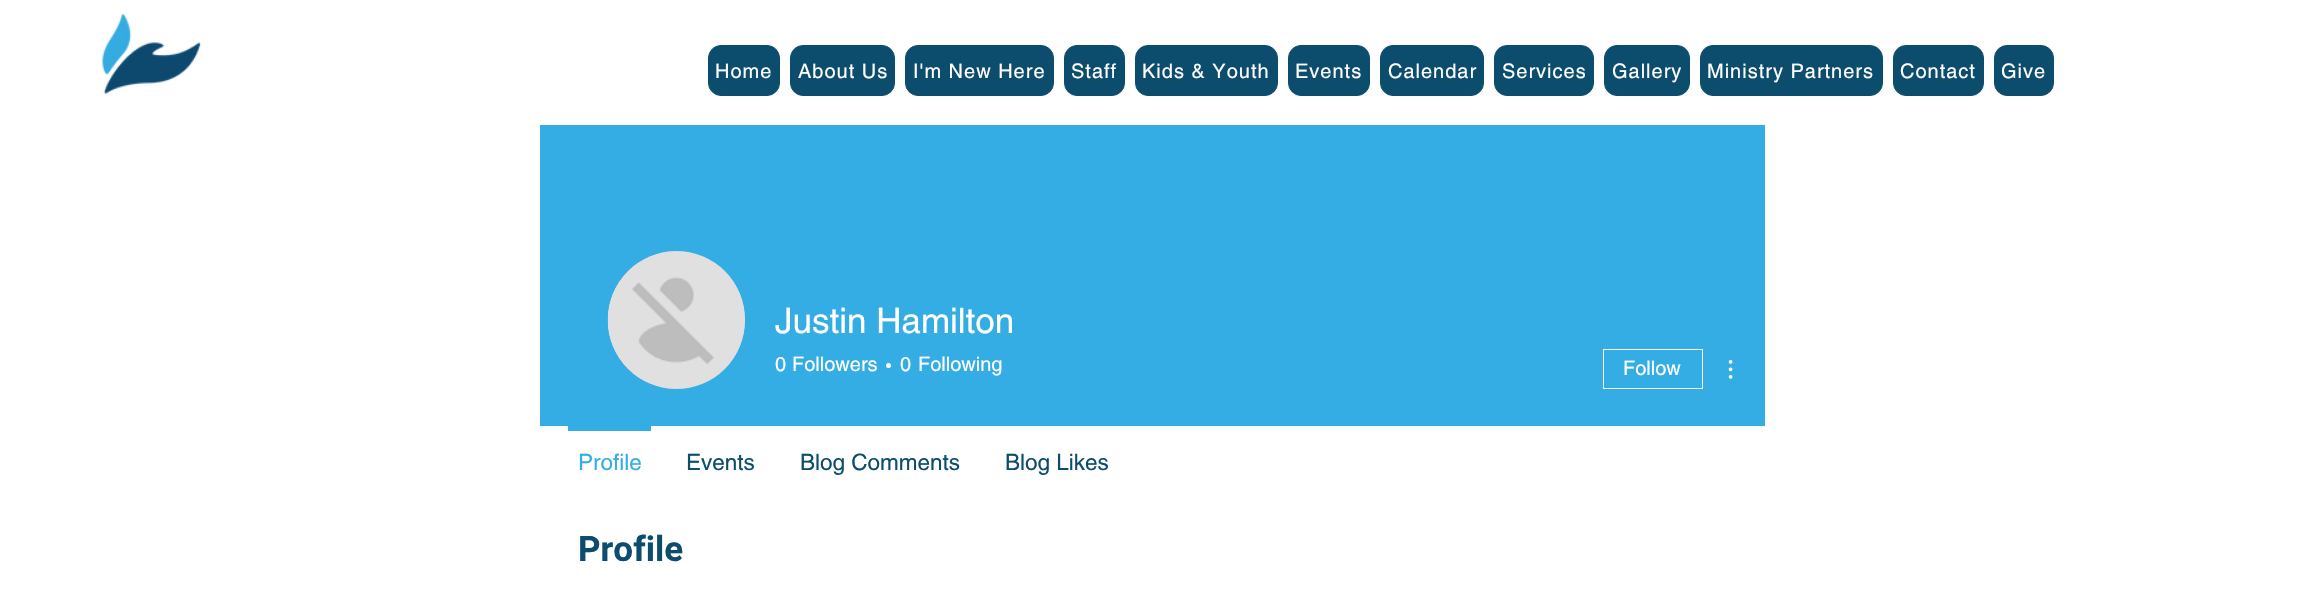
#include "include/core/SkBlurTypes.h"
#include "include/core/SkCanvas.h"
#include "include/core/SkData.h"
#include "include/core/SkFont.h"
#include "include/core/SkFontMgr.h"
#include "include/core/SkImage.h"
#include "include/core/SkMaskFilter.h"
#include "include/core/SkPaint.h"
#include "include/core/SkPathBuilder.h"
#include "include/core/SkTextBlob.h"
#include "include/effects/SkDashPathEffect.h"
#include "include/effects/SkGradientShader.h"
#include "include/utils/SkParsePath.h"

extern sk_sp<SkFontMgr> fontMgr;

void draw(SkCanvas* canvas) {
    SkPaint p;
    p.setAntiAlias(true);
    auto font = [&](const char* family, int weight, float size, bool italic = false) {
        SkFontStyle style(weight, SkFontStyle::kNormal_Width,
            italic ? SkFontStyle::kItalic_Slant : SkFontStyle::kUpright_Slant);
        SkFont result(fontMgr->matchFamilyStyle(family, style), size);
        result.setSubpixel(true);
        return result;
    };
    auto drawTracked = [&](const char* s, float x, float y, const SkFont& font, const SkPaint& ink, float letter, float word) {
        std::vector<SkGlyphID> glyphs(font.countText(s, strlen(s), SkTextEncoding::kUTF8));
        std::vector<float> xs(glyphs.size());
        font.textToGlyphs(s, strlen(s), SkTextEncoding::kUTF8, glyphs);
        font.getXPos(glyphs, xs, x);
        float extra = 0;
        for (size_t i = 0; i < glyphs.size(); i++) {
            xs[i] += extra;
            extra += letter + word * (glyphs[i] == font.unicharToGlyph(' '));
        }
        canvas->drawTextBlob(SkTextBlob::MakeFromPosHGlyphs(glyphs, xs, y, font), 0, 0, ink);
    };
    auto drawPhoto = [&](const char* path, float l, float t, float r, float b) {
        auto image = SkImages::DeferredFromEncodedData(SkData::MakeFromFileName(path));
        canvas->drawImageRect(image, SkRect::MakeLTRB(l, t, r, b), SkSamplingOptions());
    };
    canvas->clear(0xFFFFFFFF);
    drawPhoto("media/1.png", 101, 13, 201, 94);
    p.setColor(0xFF0C4C6C);
    canvas->drawRoundRect(SkRect::MakeLTRB(708.5f, 45.5f, 779.5f, 95.5f), 12.5f, 12.5f, p);
    p.setStyle(SkPaint::kStroke_Style);
    p.setStrokeWidth(1);
    canvas->drawRoundRect(SkRect::MakeLTRB(708.5f, 45.5f, 779.5f, 95.5f), 12.5f, 12.5f, p);
    auto font1 = font("helvetica", 400, 20);
    p.setStyle(SkPaint::kFill_Style);
    p.setColor(0xFFFFFFFF);
    drawTracked("Home", 715, 78, font1, p, 1, 0);
    p.setColor(0xFF0C4C6C);
    canvas->drawRoundRect(SkRect::MakeLTRB(790.5f, 45.5f, 894.5f, 95.5f), 12.5f, 12.5f, p);
    p.setStyle(SkPaint::kStroke_Style);
    canvas->drawRoundRect(SkRect::MakeLTRB(790.5f, 45.5f, 894.5f, 95.5f), 12.5f, 12.5f, p);
    p.setStyle(SkPaint::kFill_Style);
    p.setColor(0xFFFFFFFF);
    drawTracked("About Us", 798, 78, font1, p, 1, 0);
    p.setColor(0xFF0C4C6C);
    canvas->drawRoundRect(SkRect::MakeLTRB(905.5f, 45.5f, 1053.5f, 95.5f), 12.5f, 12.5f, p);
    p.setStyle(SkPaint::kStroke_Style);
    canvas->drawRoundRect(SkRect::MakeLTRB(905.5f, 45.5f, 1053.5f, 95.5f), 12.5f, 12.5f, p);
    p.setStyle(SkPaint::kFill_Style);
    p.setColor(0xFFFFFFFF);
    drawTracked("I'm New Here", 913, 78, font1, p, 1, 0);
    p.setColor(0xFF0C4C6C);
    canvas->drawRoundRect(SkRect::MakeLTRB(1064.5f, 45.5f, 1124.5f, 95.5f), 12.5f, 12.5f, p);
    p.setStyle(SkPaint::kStroke_Style);
    canvas->drawRoundRect(SkRect::MakeLTRB(1064.5f, 45.5f, 1124.5f, 95.5f), 12.5f, 12.5f, p);
    p.setStyle(SkPaint::kFill_Style);
    p.setColor(0xFFFFFFFF);
    drawTracked("Staff", 1071, 78, font1, p, 1, 0);
    p.setColor(0xFF0C4C6C);
    canvas->drawRoundRect(SkRect::MakeLTRB(1135.5f, 45.5f, 1277.5f, 95.5f), 12.5f, 12.5f, p);
    p.setStyle(SkPaint::kStroke_Style);
    canvas->drawRoundRect(SkRect::MakeLTRB(1135.5f, 45.5f, 1277.5f, 95.5f), 12.5f, 12.5f, p);
    p.setStyle(SkPaint::kFill_Style);
    p.setColor(0xFFFFFFFF);
    drawTracked("Kids & Youth", 1142, 78, font1, p, 1, 0);
    p.setColor(0xFF0C4C6C);
    canvas->drawRoundRect(SkRect::MakeLTRB(1288.5f, 45.5f, 1369.5f, 95.5f), 12.5f, 12.5f, p);
    p.setStyle(SkPaint::kStroke_Style);
    canvas->drawRoundRect(SkRect::MakeLTRB(1288.5f, 45.5f, 1369.5f, 95.5f), 12.5f, 12.5f, p);
    p.setStyle(SkPaint::kFill_Style);
    p.setColor(0xFFFFFFFF);
    drawTracked("Events", 1295, 78, font1, p, 1, 0);
    p.setColor(0xFF0C4C6C);
    canvas->drawRoundRect(SkRect::MakeLTRB(1380.5f, 45.5f, 1483.5f, 95.5f), 12.5f, 12.5f, p);
    p.setStyle(SkPaint::kStroke_Style);
    canvas->drawRoundRect(SkRect::MakeLTRB(1380.5f, 45.5f, 1483.5f, 95.5f), 12.5f, 12.5f, p);
    p.setStyle(SkPaint::kFill_Style);
    p.setColor(0xFFFFFFFF);
    drawTracked("Calendar", 1388, 78, font1, p, 1, 0);
    p.setColor(0xFF0C4C6C);
    canvas->drawRoundRect(SkRect::MakeLTRB(1494.5f, 45.5f, 1593.5f, 95.5f), 12.5f, 12.5f, p);
    p.setStyle(SkPaint::kStroke_Style);
    canvas->drawRoundRect(SkRect::MakeLTRB(1494.5f, 45.5f, 1593.5f, 95.5f), 12.5f, 12.5f, p);
    p.setStyle(SkPaint::kFill_Style);
    p.setColor(0xFFFFFFFF);
    drawTracked("Services", 1502, 78, font1, p, 1, 0);
    p.setColor(0xFF0C4C6C);
    canvas->drawRoundRect(SkRect::MakeLTRB(1604.5f, 45.5f, 1689.5f, 95.5f), 12.5f, 12.5f, p);
    p.setStyle(SkPaint::kStroke_Style);
    canvas->drawRoundRect(SkRect::MakeLTRB(1604.5f, 45.5f, 1689.5f, 95.5f), 12.5f, 12.5f, p);
    p.setStyle(SkPaint::kFill_Style);
    p.setColor(0xFFFFFFFF);
    drawTracked("Gallery", 1612, 78, font1, p, 1, 0);
    p.setColor(0xFF0C4C6C);
    canvas->drawRoundRect(SkRect::MakeLTRB(1700.5f, 45.5f, 1882.5f, 95.5f), 12.5f, 12.5f, p);
    p.setStyle(SkPaint::kStroke_Style);
    canvas->drawRoundRect(SkRect::MakeLTRB(1700.5f, 45.5f, 1882.5f, 95.5f), 12.5f, 12.5f, p);
    p.setStyle(SkPaint::kFill_Style);
    p.setColor(0xFFFFFFFF);
    drawTracked("Ministry Partners", 1707, 78, font1, p, 1, 0);
    p.setColor(0xFF0C4C6C);
    canvas->drawRoundRect(SkRect::MakeLTRB(1893.5f, 45.5f, 1983.5f, 95.5f), 12.5f, 12.5f, p);
    p.setStyle(SkPaint::kStroke_Style);
    canvas->drawRoundRect(SkRect::MakeLTRB(1893.5f, 45.5f, 1983.5f, 95.5f), 12.5f, 12.5f, p);
    p.setStyle(SkPaint::kFill_Style);
    p.setColor(0xFFFFFFFF);
    drawTracked("Contact", 1900, 78, font1, p, 1, 0);
    p.setColor(0xFF0C4C6C);
    canvas->drawRoundRect(SkRect::MakeLTRB(1994.5f, 45.5f, 2053.5f, 95.5f), 12.5f, 12.5f, p);
    p.setStyle(SkPaint::kStroke_Style);
    canvas->drawRoundRect(SkRect::MakeLTRB(1994.5f, 45.5f, 2053.5f, 95.5f), 12.5f, 12.5f, p);
    p.setStyle(SkPaint::kFill_Style);
    p.setColor(0xFFFFFFFF);
    drawTracked("Give", 2001, 78, font1, p, 1, 0);
    p.setColor(0xFF34ACE4);
    canvas->drawRect(SkRect::MakeLTRB(540, 125, 1765, 426), p);
    p.setColor(0xFFD8D8D8);
    canvas->drawRoundRect(SkRect::MakeLTRB(608, 251, 745, 389), 68.5f, 68.5f, p);
    drawPhoto("media/2.png", 607, 251, 745, 389);
    auto font2 = font("helvetica", 400, 35);
    p.setColor(0xFFFFFFFF);
    canvas->drawString("Justin Hamilton", 775, 333, font2, p);
    canvas->drawString("0", 775, 371, font1, p);
    canvas->drawString("Followers", 792, 371, font1, p);
    canvas->drawCircle(888.5f, 365.5f, 2.5f, p);
    canvas->drawString("0", 900, 371, font1, p);
    canvas->drawString("Following", 918, 371, font1, p);
    p.setStyle(SkPaint::kStroke_Style);
    canvas->drawRect(SkRect::MakeLTRB(1603.5f, 349.5f, 1702.5f, 388.5f), p);
    p.setStyle(SkPaint::kFill_Style);
    canvas->drawString("Follow", 1623, 375, font1, p);
    drawPhoto("media/3.png", 1728, 360, 1733, 379);
    p.setColor(0xFF34ACE4);
    canvas->drawRect(SkRect::MakeLTRB(568, 426, 651, 431), p);
    auto font3 = font("helvetica", 400, 22.5f);
    canvas->drawString("Profile", 578, 470, font3, p);
    p.setColor(0xFF0C4C6C);
    {
        const struct { const char* s; float x, y; } items[] = {
            {"Events", 686, 470},
            {"Blog Comments", 800, 470},
            {"Blog Likes", 1005, 470},
        };
        for (auto [s, x, y] : items) {
            canvas->drawString(s, x, y, font3, p);
        }
    }
    auto font4 = font("Roboto", 700, 35);
    canvas->drawString("Profile", 578, 561, font4, p);
}
